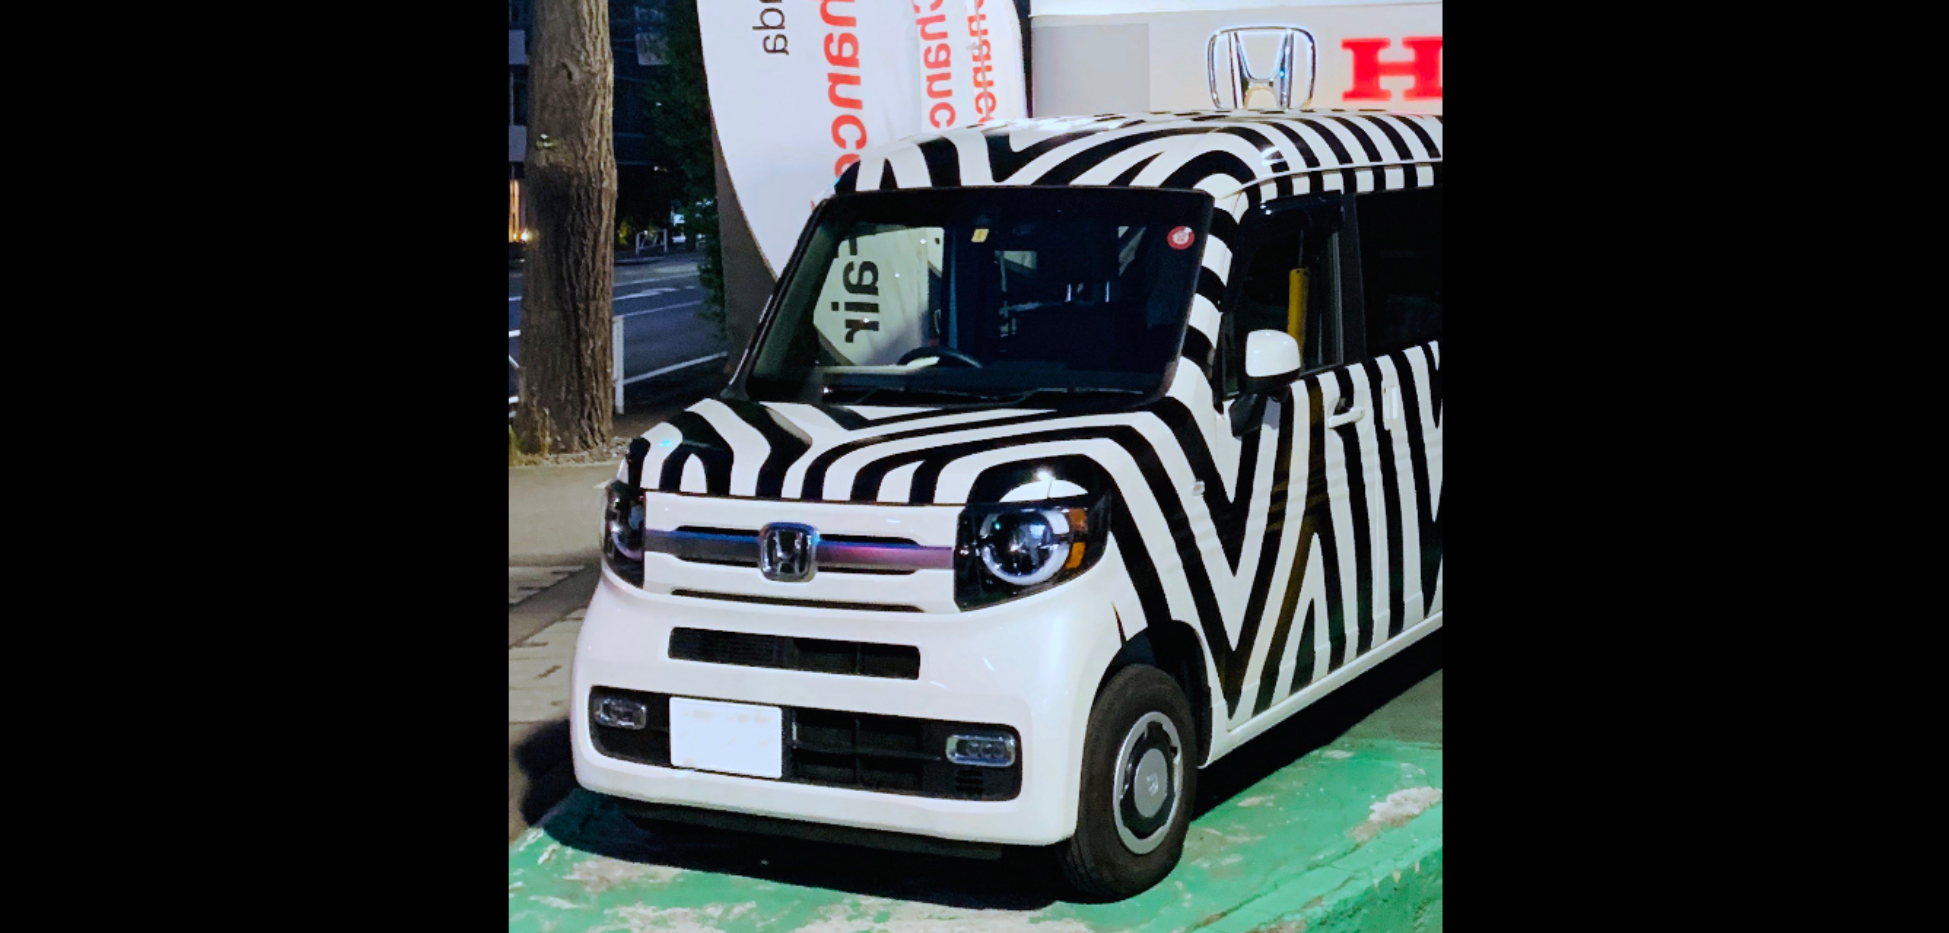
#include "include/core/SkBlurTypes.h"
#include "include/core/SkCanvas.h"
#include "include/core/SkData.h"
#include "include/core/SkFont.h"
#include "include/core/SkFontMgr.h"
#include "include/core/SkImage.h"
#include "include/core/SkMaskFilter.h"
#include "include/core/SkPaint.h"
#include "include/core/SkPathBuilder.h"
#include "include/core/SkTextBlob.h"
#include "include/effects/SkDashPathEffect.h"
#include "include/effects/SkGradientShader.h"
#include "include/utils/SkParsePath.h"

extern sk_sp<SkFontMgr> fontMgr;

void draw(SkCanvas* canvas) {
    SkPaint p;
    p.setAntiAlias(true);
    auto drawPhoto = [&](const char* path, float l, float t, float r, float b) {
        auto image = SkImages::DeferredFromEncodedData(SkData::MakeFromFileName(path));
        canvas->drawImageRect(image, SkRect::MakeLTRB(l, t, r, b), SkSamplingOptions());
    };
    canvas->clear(0xFF000000);
    drawPhoto("media/1.png", 508, 0, 1443, 933);
}
